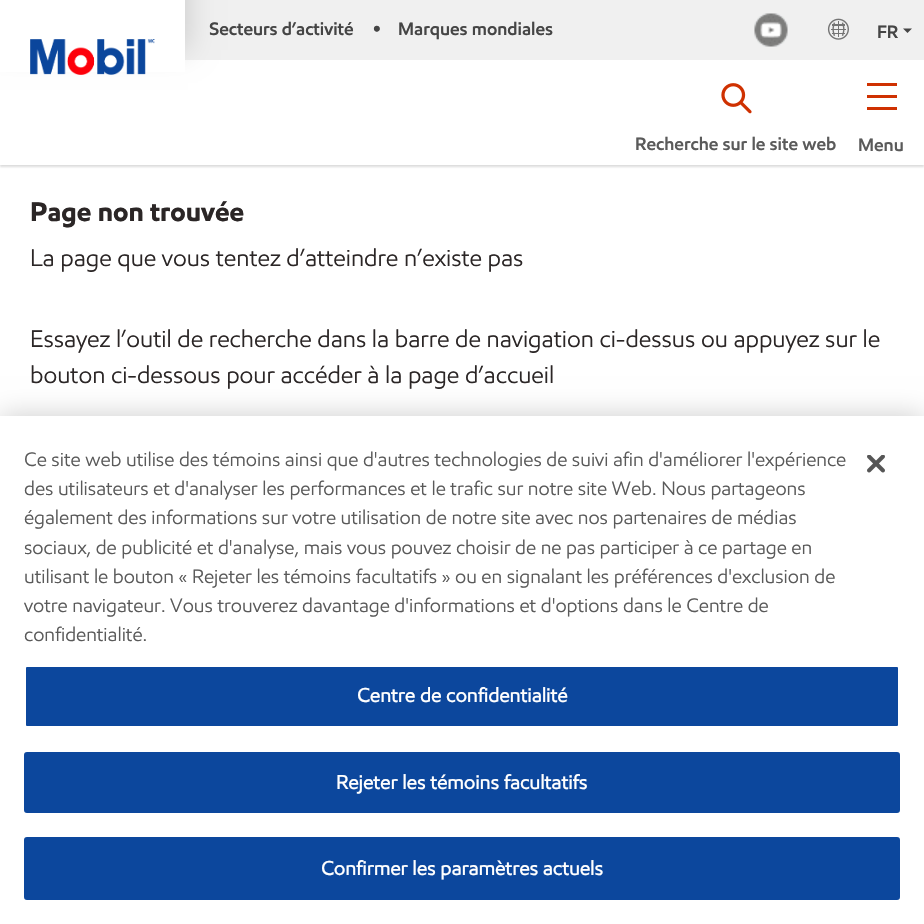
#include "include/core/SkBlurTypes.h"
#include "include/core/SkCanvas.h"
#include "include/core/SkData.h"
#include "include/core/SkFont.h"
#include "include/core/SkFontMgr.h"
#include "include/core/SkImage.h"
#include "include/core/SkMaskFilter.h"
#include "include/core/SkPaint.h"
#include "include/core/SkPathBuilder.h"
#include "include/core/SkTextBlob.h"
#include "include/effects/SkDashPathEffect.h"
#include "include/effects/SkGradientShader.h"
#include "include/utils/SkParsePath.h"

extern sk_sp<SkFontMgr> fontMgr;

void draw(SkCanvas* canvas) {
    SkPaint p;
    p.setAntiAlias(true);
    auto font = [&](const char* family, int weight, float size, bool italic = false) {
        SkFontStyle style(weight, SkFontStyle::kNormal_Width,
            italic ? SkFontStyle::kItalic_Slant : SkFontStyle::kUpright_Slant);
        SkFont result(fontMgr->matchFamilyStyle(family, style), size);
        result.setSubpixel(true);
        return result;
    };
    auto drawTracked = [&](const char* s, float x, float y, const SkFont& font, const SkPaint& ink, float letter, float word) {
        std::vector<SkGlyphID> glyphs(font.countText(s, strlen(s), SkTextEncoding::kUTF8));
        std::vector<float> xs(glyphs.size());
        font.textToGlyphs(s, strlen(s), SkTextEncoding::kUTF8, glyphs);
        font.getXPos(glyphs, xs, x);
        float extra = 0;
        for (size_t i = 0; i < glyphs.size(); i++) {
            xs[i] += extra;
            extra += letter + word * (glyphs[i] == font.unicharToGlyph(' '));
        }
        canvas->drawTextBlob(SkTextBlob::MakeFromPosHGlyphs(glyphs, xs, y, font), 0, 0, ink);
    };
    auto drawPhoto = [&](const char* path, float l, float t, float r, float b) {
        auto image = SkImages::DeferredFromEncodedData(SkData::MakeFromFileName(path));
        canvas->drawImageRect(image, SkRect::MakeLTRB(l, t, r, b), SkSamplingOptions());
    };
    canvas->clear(0xFFFFFFFF);
    p.setColor(0x26111111);
    p.setMaskFilter(SkMaskFilter::MakeBlur(kNormal_SkBlurStyle, 1));
    canvas->drawRect(SkRect::MakeLTRB(0, 2, 924, 167), p);
    p.setMaskFilter(nullptr);
    p.setColor(0xFFF0F0F0);
    canvas->drawRect(SkRect::MakeLTRB(185, 0, 924, 60), p);
    p.setColor(0xFFFFFFFF);
    canvas->drawRect(SkRect::MakeLTRB(0, 60, 924, 165), p);
    p.setColor(0xFFCCCCCC);
    p.setMaskFilter(SkMaskFilter::MakeBlur(kNormal_SkBlurStyle, 13.5f));
    canvas->drawRect(SkRect::MakeLTRB(-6, -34, 188, 50), p);
    p.setMaskFilter(nullptr);
    p.setColor(0xFFFFFFFF);
    canvas->drawRect(SkRect::MakeLTRB(0, 0, 185, 72), p);
    drawPhoto("media/1.png", 30, 39, 155, 75);
    auto font1 = font("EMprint", 600, 18);
    p.setColor(0xFF454545);
    canvas->drawString("Secteurs d’activité", 209, 35, font1, p);
    auto font2 = font("Liberation Sans", 400, 22);
    canvas->drawString("•", 373, 36, font2, p);
    canvas->drawString("Marques mondiales", 398, 35, font1, p);
    drawPhoto("media/2.png", 754, 13, 788, 47);
    drawPhoto("media/3.png", 827, 18, 849, 40);
    canvas->drawString("FR", 877, 38, font1, p);
    canvas->drawPath(SkPathBuilder().moveTo(903, 28.5f).lineTo(912, 28.5f).lineTo(907.5f, 33).close().detach(), p);
    drawPhoto("media/4.png", 721, 83, 752, 114);
    p.setColor(0xFF5A5A5A);
    canvas->drawString("Recherche sur le site web", 635, 150, font1, p);
    {
        const struct { float l, t, r, b; SkColor color; } items[] = {
            {867, 95, 897, 98, 0xFFCF3101},
            {867, 83, 897, 86, 0xFFCF3101},
            {867, 107, 897, 110, 0xFFCF3101},
        };
        for (auto [l, t, r, b, color] : items) {
            p.setColor(color);
            canvas->drawRect(SkRect::MakeLTRB(l, t, r, b), p);
        }
    }
    p.setColor(0xFF5A5A5A);
    canvas->drawString("Menu", 858, 151, font1, p);
    auto font3 = font("EMprint", 700, 27);
    p.setColor(0xFF2B2626);
    canvas->drawString("Page non trouvée", 30, 221, font3, p);
    auto font4 = font("EMprint", 400, 24);
    {
        const struct { const char* s; float x, y; } items[] = {
            {"La page que vous tentez d’atteindre n’existe pas", 30, 266},
            {"Essayez l’outil de recherche dans la barre de navigation ci-dessus ou appuyez sur le", 30, 347},
            {"bouton ci-dessous pour accéder à la page d’accueil", 30, 383},
        };
        for (auto [s, x, y] : items) {
            canvas->drawString(s, x, y, font4, p);
        }
    }
    p.setColor(0x33000000);
    p.setMaskFilter(SkMaskFilter::MakeBlur(kNormal_SkBlurStyle, 13.5f));
    canvas->drawRect(SkRect::MakeLTRB(0, 416, 924, 924), p);
    p.setMaskFilter(nullptr);
    p.setColor(0xFFFFFFFF);
    canvas->drawRect(SkRect::MakeLTRB(0, 416, 924, 924), p);
    auto font5 = font("EMprint", 400, 19.5f);
    p.setColor(0xFF5A5A5A);
    {
        const struct { const char* s; float x, y; } items[] = {
            {"Ce site web utilise des témoins ainsi que d'autres technologies de suivi afin d'améliorer l'expérience", 24, 466},
            {"des utilisateurs et d'analyser les performances et le trafic sur notre site Web. Nous partageons", 24, 495},
            {"également des informations sur votre utilisation de notre site avec nos partenaires de médias", 24, 524},
            {"sociaux, de publicité et d'analyse, mais vous pouvez choisir de ne pas participer à ce partage en", 24, 554},
            {"utilisant le bouton « Rejeter les témoins facultatifs » ou en signalant les préférences d'exclusion de", 24, 583},
            {"votre navigateur. Vous trouverez davantage d'informations et d'options dans le Centre de", 24, 612},
            {"confidentialité.", 24, 641},
        };
        for (auto [s, x, y] : items) {
            canvas->drawString(s, x, y, font5, p);
        }
    }
    p.setColor(0xFF0C479D);
    canvas->drawRoundRect(SkRect::MakeLTRB(25, 666, 899, 727), 2, 2, p);
    p.setStyle(SkPaint::kStroke_Style);
    p.setStrokeWidth(2);
    p.setColor(0xFFFFFFFF);
    canvas->drawRoundRect(SkRect::MakeLTRB(25, 666, 899, 727), 2, 2, p);
    auto font6 = font("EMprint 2", 700, 19.5f);
    p.setStyle(SkPaint::kFill_Style);
    drawTracked("Centre de confidentialité", 357, 702, font6, p, 0.2f, 0);
    p.setColor(0xFF0C479D);
    canvas->drawRoundRect(SkRect::MakeLTRB(25, 753, 899, 812), 2, 2, p);
    p.setStyle(SkPaint::kStroke_Style);
    canvas->drawRoundRect(SkRect::MakeLTRB(25, 753, 899, 812), 2, 2, p);
    p.setStyle(SkPaint::kFill_Style);
    p.setColor(0xFFFFFFFF);
    drawTracked("Rejeter les témoins facultatifs", 336, 789, font6, p, 0.2f, 0);
    p.setColor(0xFF0C479D);
    canvas->drawRoundRect(SkRect::MakeLTRB(25, 838, 899, 899), 2, 2, p);
    p.setStyle(SkPaint::kStroke_Style);
    canvas->drawRoundRect(SkRect::MakeLTRB(25, 838, 899, 899), 2, 2, p);
    p.setStyle(SkPaint::kFill_Style);
    p.setColor(0xFFFFFFFF);
    drawTracked("Confirmer les paramètres actuels", 321, 875, font6, p, 0.2f, 0);
    drawPhoto("media/5.png", 867, 455, 885, 473);
}
